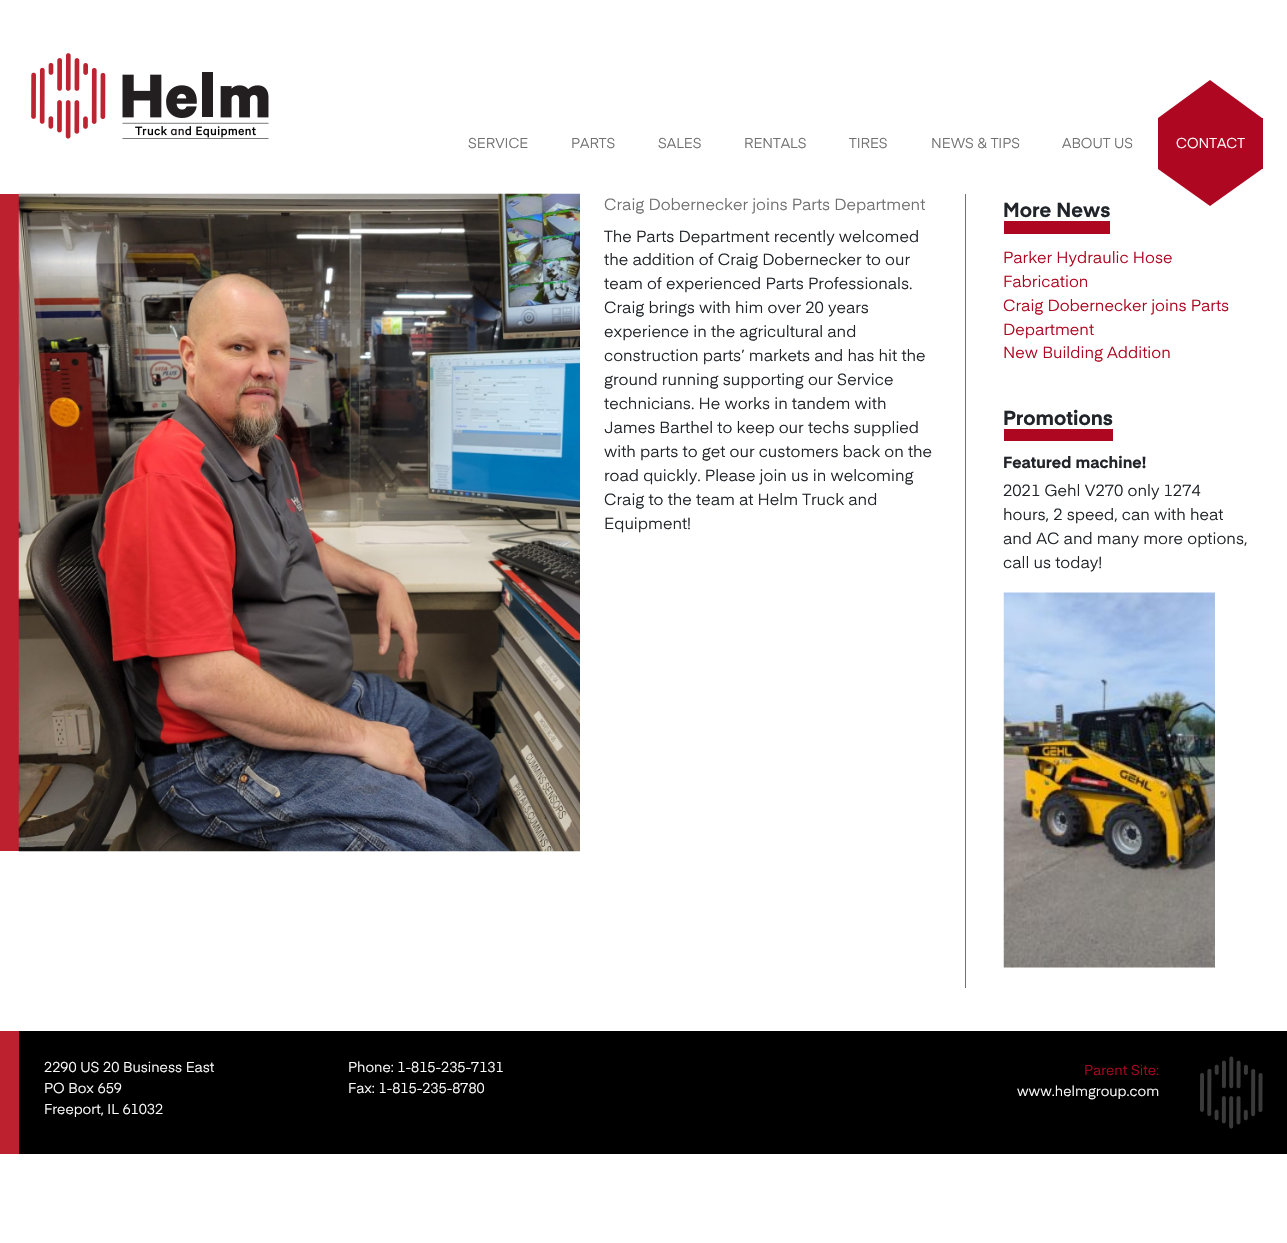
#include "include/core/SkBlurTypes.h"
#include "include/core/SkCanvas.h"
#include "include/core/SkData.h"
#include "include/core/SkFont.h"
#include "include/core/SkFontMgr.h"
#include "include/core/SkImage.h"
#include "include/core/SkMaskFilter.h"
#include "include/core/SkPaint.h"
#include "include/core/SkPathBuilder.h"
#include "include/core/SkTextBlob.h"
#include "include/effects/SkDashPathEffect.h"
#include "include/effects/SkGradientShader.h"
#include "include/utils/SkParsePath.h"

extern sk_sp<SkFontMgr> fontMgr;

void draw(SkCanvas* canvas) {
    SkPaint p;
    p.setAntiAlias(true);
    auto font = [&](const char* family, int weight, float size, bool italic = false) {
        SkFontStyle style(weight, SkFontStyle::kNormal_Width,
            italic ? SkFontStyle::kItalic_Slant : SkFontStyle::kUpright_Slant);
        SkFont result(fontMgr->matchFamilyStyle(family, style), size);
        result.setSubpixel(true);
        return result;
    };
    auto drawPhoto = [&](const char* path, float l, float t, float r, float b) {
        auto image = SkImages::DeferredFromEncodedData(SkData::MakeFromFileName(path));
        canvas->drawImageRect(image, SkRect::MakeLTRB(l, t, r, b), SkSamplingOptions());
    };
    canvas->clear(0xFFFFFFFF);
    drawPhoto("media/1.png", 31, 53, 269, 139);
    auto font1 = font("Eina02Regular", 400, 14);
    p.setColor(0xFF707070);
    {
        const struct { const char* s; float x, y; } items[] = {
            {"SERVICE", 468, 148},
            {"PARTS", 571, 148},
            {"SALES", 658, 148},
            {"RENTALS", 744, 148},
            {"TIRES", 849, 148},
            {"NEWS & TIPS", 931, 148},
            {"ABOUT US", 1062, 148},
        };
        for (auto [s, x, y] : items) {
            canvas->drawString(s, x, y, font1, p);
        }
    }
    p.setColor(0xFFAE0721);
    canvas->drawRect(SkRect::MakeLTRB(1158, 118, 1263, 169), p);
    canvas->drawPath(SkPathBuilder().moveTo(1262, 118).lineTo(1158, 118).lineTo(1210, 80).close().detach(), p);
    p.setColor(0xFFFFFFFF);
    canvas->drawString("CONTACT", 1176, 148, font1, p);
    p.setColor(0xFFAE0721);
    canvas->drawPath(SkPathBuilder().moveTo(1158, 169).lineTo(1262, 169).lineTo(1210, 206).close().detach(), p);
    p.setColor(0xFFBD202E);
    canvas->drawRect(SkRect::MakeLTRB(0, 194, 19, 851), p);
    drawPhoto("media/2.png", 18, 193, 580, 852);
    p.setColor(0xFF707070);
    canvas->drawRect(SkRect::MakeLTRB(965, 194, 966, 988), p);
    auto font2 = font("Eina02Regular", 400, 16);
    canvas->drawString("Craig Dobernecker joins Parts Department", 604, 210, font2, p);
    p.setColor(0xFF212529);
    {
        const struct { const char* s; float x, y; } items[] = {
            {"The Parts Department recently welcomed", 604, 242},
            {"the addition of Craig Dobernecker to our", 604, 265},
            {"team of experienced Parts Professionals.", 604, 289},
            {"Craig brings with him over 20 years", 604, 313},
            {"experience in the agricultural and", 604, 337},
            {"construction parts’ markets and has hit the", 604, 361},
            {"ground running supporting our Service", 604, 385},
            {"technicians. He works in tandem with", 604, 409},
            {"James Barthel to keep our techs supplied", 604, 433},
            {"with parts to get our customers back on the", 604, 457},
            {"road quickly. Please join us in welcoming", 604, 481},
            {"Craig to the team at Helm Truck and", 604, 505},
            {"Equipment!", 604, 529},
        };
        for (auto [s, x, y] : items) {
            canvas->drawString(s, x, y, font2, p);
        }
    }
    p.setColor(0xFFAE0721);
    canvas->drawRect(SkRect::MakeLTRB(1004, 221, 1110, 234), p);
    auto font3 = font("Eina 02", 700, 20);
    p.setColor(0xFF212529);
    canvas->drawString("More News", 1003, 217, font3, p);
    p.setColor(0xFFAE0721);
    {
        const struct { const char* s; float x, y; } items[] = {
            {"Parker Hydraulic Hose", 1003, 263},
            {"Fabrication", 1003, 287},
            {"Craig Dobernecker joins Parts", 1003, 311},
            {"Department", 1003, 335},
            {"New Building Addition", 1003, 358},
        };
        for (auto [s, x, y] : items) {
            canvas->drawString(s, x, y, font2, p);
        }
    }
    canvas->drawRect(SkRect::MakeLTRB(1004, 429, 1113, 441), p);
    p.setColor(0xFF212529);
    canvas->drawString("Promotions", 1003, 425, font3, p);
    auto font4 = font("Eina 02", 700, 16);
    canvas->drawString("Featured machine!", 1003, 468, font4, p);
    {
        const struct { const char* s; float x, y; } items[] = {
            {"2021 Gehl V270 only 1274", 1003, 496},
            {"hours, 2 speed, can with heat", 1003, 520},
            {"and AC and many more options,", 1003, 544},
            {"call us today!", 1003, 568},
        };
        for (auto [s, x, y] : items) {
            canvas->drawString(s, x, y, font2, p);
        }
    }
    drawPhoto("media/3.png", 1003, 592, 1215, 968);
    p.setColor(0xFF000000);
    canvas->drawRect(SkRect::MakeLTRB(19, 1031, 1287, 1154), p);
    p.setColor(0xFFBD202E);
    canvas->drawRect(SkRect::MakeLTRB(0, 1031, 19, 1154), p);
    p.setColor(0xFFFFFFFF);
    {
        const struct { const char* s; float x, y; } items[] = {
            {"2290 US 20 Business East", 44, 1072},
            {"PO Box 659", 44, 1093},
            {"Freeport, IL 61032", 44, 1114},
            {"Phone: 1-815-235-7131", 348, 1072},
            {"Fax: 1-815-235-8780", 348, 1093},
        };
        for (auto [s, x, y] : items) {
            canvas->drawString(s, x, y, font1, p);
        }
    }
    p.setColor(0xFFAE0721);
    canvas->drawString("Parent Site:", 1084, 1075, font1, p);
    p.setColor(0xFFFFFFFF);
    canvas->drawString("www.helmgroup.com", 1017, 1096, font1, p);
    drawPhoto("media/4.png", 1200, 1056, 1263, 1129);
}
